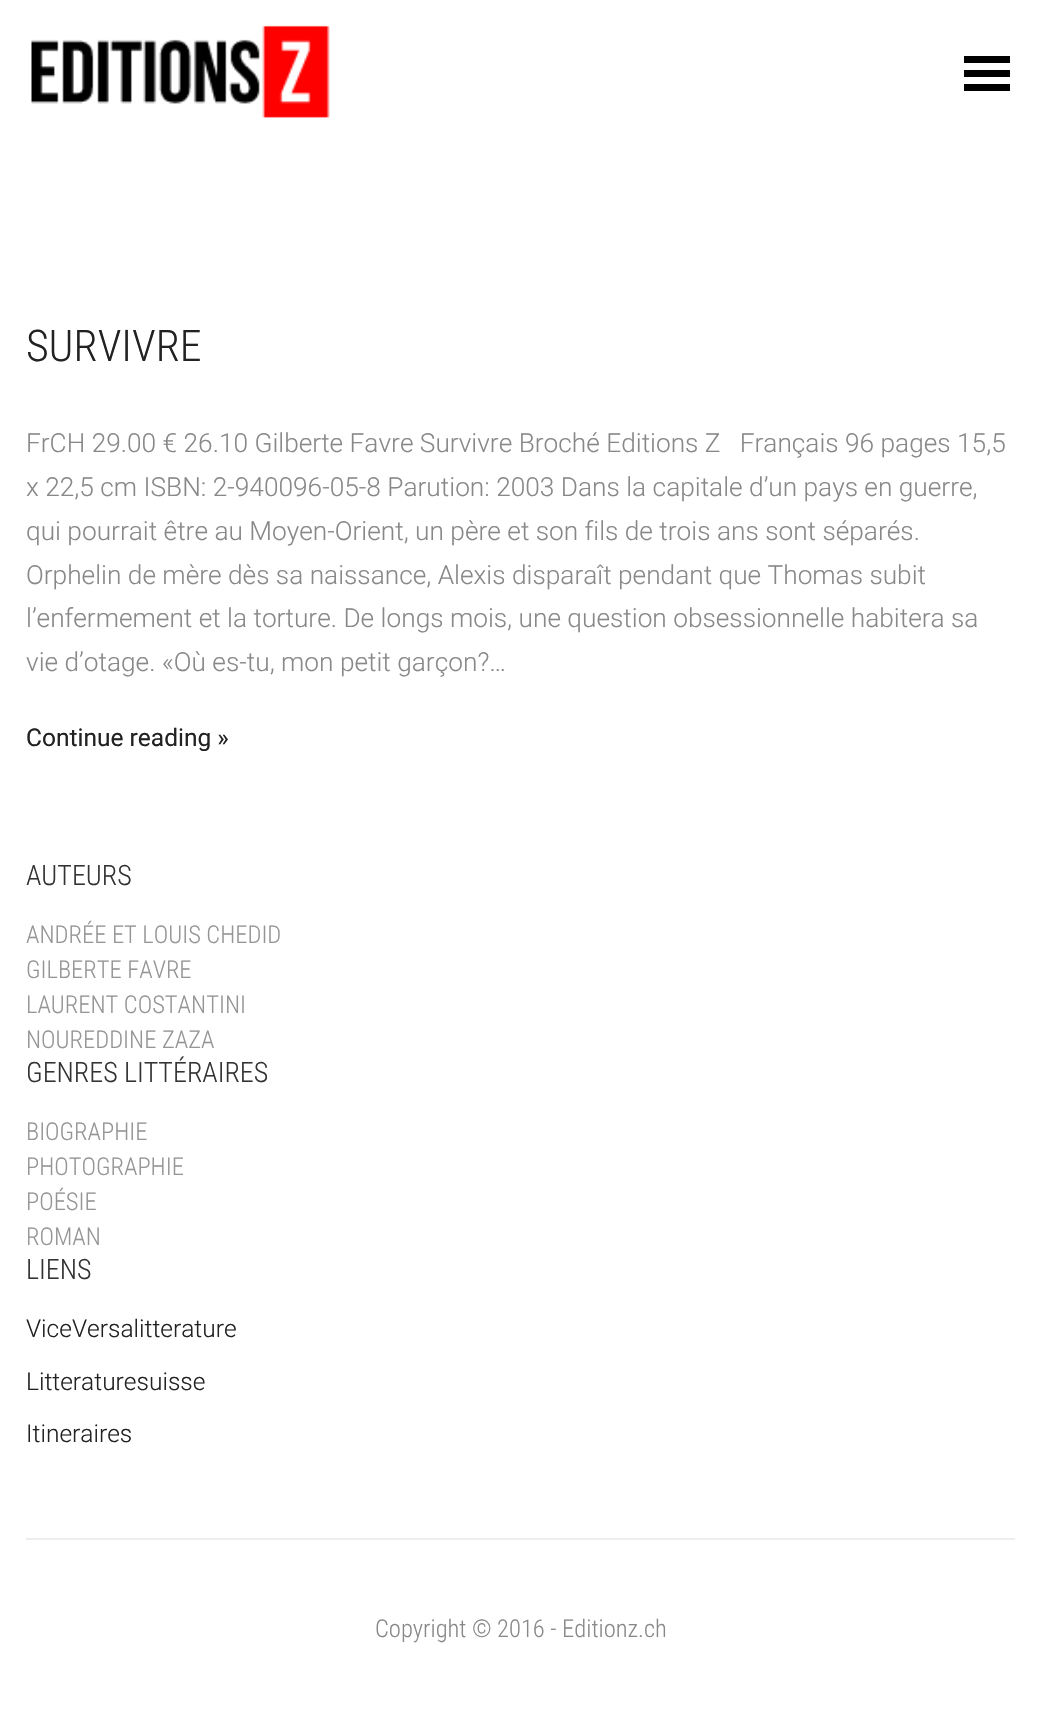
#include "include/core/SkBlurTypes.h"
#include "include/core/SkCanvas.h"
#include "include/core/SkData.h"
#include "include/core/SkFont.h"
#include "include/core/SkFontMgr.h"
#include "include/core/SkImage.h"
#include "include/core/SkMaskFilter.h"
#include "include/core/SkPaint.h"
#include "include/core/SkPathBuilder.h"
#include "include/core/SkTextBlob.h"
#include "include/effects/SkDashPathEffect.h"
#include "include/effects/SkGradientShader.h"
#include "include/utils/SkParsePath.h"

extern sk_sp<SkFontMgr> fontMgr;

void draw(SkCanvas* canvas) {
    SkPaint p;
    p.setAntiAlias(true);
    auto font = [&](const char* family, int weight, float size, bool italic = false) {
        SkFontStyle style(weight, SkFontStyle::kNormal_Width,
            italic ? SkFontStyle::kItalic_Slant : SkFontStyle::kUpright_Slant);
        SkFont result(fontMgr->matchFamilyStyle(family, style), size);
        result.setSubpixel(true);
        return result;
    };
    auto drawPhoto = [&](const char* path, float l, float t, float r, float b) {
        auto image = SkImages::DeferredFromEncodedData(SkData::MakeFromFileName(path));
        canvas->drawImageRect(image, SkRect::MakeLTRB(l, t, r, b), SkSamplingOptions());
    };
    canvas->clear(0xFFFFFFFF);
    drawPhoto("media/1.png", 31, 25, 330, 118);
    p.setColor(0xFF000000);
    canvas->drawPath(SkPathBuilder().moveTo(1010, 63).lineTo(964, 63).lineTo(964, 56).lineTo(1010, 56).close().moveTo(1010, 70).lineTo(964, 70).lineTo(964, 77).lineTo(1010, 77).close().moveTo(1010, 84).lineTo(964, 84).lineTo(964, 91).lineTo(1010, 91).close().detach(), p);
    auto font1 = font("Roboto Condensed", 300, 43.75f);
    p.setColor(0xFF222222);
    canvas->drawString("SURVIVRE", 26, 361, font1, p);
    auto font2 = font("Roboto", 300, 26.25f);
    p.setColor(0xFF888888);
    {
        const struct { const char* s; float x, y; } items[] = {
            {"FrCH 29.00 € 26.10 Gilberte Favre Survivre Broché Editions Z   Français 96 pages 15,5", 26, 452},
            {"x 22,5 cm ISBN: 2-940096-05-8 Parution: 2003 Dans la capitale d’un pays en guerre,", 26, 496},
            {"qui pourrait être au Moyen-Orient, un père et son fils de trois ans sont séparés.", 26, 540},
            {"Orphelin de mère dès sa naissance, Alexis disparaît pendant que Thomas subit", 26, 584},
            {"l’enfermement et la torture. De longs mois, une question obsessionnelle habitera sa", 26, 627},
            {"vie d’otage. «Où es-tu, mon petit garçon?…", 26, 671},
        };
        for (auto [s, x, y] : items) {
            canvas->drawString(s, x, y, font2, p);
        }
    }
    auto font3 = font("Roboto", 400, 24.5f);
    p.setColor(0xFF222222);
    canvas->drawString("Continue reading »", 26, 746, font3, p);
    auto font4 = font("Roboto Condensed", 300, 28);
    p.setColor(0xFF333333);
    canvas->drawString("AUTEURS", 26, 885, font4, p);
    auto font5 = font("Roboto Condensed", 300, 24.5f);
    p.setColor(0xFF959595);
    {
        const struct { const char* s; float x, y; } items[] = {
            {"ANDRÉE ET LOUIS CHEDID", 26, 943},
            {"GILBERTE FAVRE", 26, 978},
            {"LAURENT COSTANTINI", 26, 1013},
            {"NOUREDDINE ZAZA", 26, 1048},
        };
        for (auto [s, x, y] : items) {
            canvas->drawString(s, x, y, font5, p);
        }
    }
    p.setColor(0xFF333333);
    canvas->drawString("GENRES LITTÉRAIRES", 26, 1082, font4, p);
    p.setColor(0xFF959595);
    {
        const struct { const char* s; float x, y; } items[] = {
            {"BIOGRAPHIE", 26, 1140},
            {"PHOTOGRAPHIE", 26, 1175},
            {"POÉSIE", 26, 1210},
            {"ROMAN", 26, 1245},
        };
        for (auto [s, x, y] : items) {
            canvas->drawString(s, x, y, font5, p);
        }
    }
    p.setColor(0xFF333333);
    canvas->drawString("LIENS", 26, 1279, font4, p);
    auto font6 = font("Roboto", 300, 24.5f);
    p.setColor(0xFF222222);
    {
        const struct { const char* s; float x, y; } items[] = {
            {"ViceVersalitterature", 26, 1337},
            {"Litteraturesuisse", 26, 1390},
            {"Itineraires", 26, 1442},
        };
        for (auto [s, x, y] : items) {
            canvas->drawString(s, x, y, font6, p);
        }
    }
    p.setColor(0xFFEEEEEE);
    canvas->drawRect(SkRect::MakeLTRB(26, 1538, 1015, 1540), p);
    p.setColor(0xFF888888);
    canvas->drawString("Copyright © 2016 - Editionz.ch", 375, 1637, font5, p);
}
